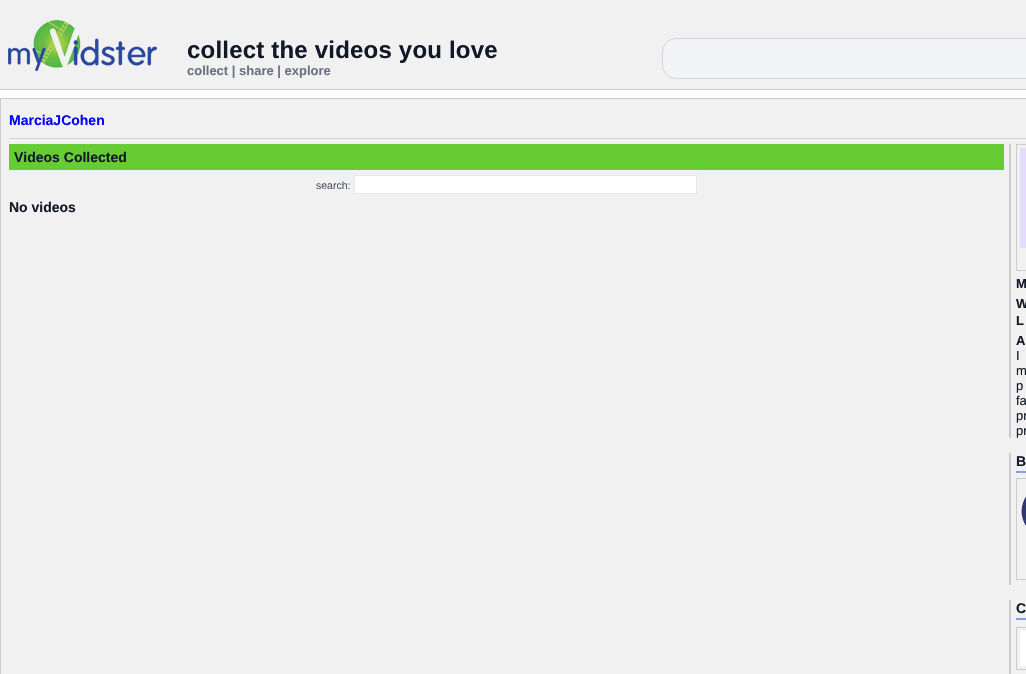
#include "include/core/SkBlurTypes.h"
#include "include/core/SkCanvas.h"
#include "include/core/SkData.h"
#include "include/core/SkFont.h"
#include "include/core/SkFontMgr.h"
#include "include/core/SkImage.h"
#include "include/core/SkMaskFilter.h"
#include "include/core/SkPaint.h"
#include "include/core/SkPathBuilder.h"
#include "include/core/SkTextBlob.h"
#include "include/effects/SkDashPathEffect.h"
#include "include/effects/SkGradientShader.h"
#include "include/utils/SkParsePath.h"

extern sk_sp<SkFontMgr> fontMgr;

void draw(SkCanvas* canvas) {
    SkPaint p;
    p.setAntiAlias(true);
    auto font = [&](const char* family, int weight, float size, bool italic = false) {
        SkFontStyle style(weight, SkFontStyle::kNormal_Width,
            italic ? SkFontStyle::kItalic_Slant : SkFontStyle::kUpright_Slant);
        SkFont result(fontMgr->matchFamilyStyle(family, style), size);
        result.setSubpixel(true);
        return result;
    };
    auto drawTracked = [&](const char* s, float x, float y, const SkFont& font, const SkPaint& ink, float letter, float word) {
        std::vector<SkGlyphID> glyphs(font.countText(s, strlen(s), SkTextEncoding::kUTF8));
        std::vector<float> xs(glyphs.size());
        font.textToGlyphs(s, strlen(s), SkTextEncoding::kUTF8, glyphs);
        font.getXPos(glyphs, xs, x);
        float extra = 0;
        for (size_t i = 0; i < glyphs.size(); i++) {
            xs[i] += extra;
            extra += letter + word * (glyphs[i] == font.unicharToGlyph(' '));
        }
        canvas->drawTextBlob(SkTextBlob::MakeFromPosHGlyphs(glyphs, xs, y, font), 0, 0, ink);
    };
    auto drawPhoto = [&](const char* path, float l, float t, float r, float b) {
        auto image = SkImages::DeferredFromEncodedData(SkData::MakeFromFileName(path));
        canvas->drawImageRect(image, SkRect::MakeLTRB(l, t, r, b), SkSamplingOptions());
    };
    canvas->clear(0xFFFFFFFF);
    p.setColor(0xFFF1F1F1);
    canvas->drawRect(SkRect::MakeLTRB(0, 0, 1026, 89), p);
    p.setColor(0xFFCCCCCC);
    canvas->drawRect(SkRect::MakeLTRB(0, 89, 1026, 90), p);
    drawPhoto("media/1.png", 8, 20, 157, 71);
    auto font1 = font("Liberation Sans", 700, 24);
    p.setColor(0xFF111827);
    drawTracked("collect the videos you love", 187, 58, font1, p, 0.2f, 0);
    auto font2 = font("Liberation Sans", 700, 13);
    p.setColor(0xFF6B7280);
    canvas->drawString("collect | share | explore", 187, 75, font2, p);
    p.setColor(0xFFF3F4F6);
    canvas->drawRoundRect(SkRect::MakeLTRB(662.5f, 38.5f, 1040.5f, 78.5f), 13.5f, 13.5f, p);
    p.setStyle(SkPaint::kStroke_Style);
    p.setStrokeWidth(1);
    p.setColor(0xFFD1D5DB);
    canvas->drawRoundRect(SkRect::MakeLTRB(662.5f, 38.5f, 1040.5f, 78.5f), 13.5f, 13.5f, p);
    p.setStyle(SkPaint::kFill_Style);
    p.setColor(0xFFF1F1F1);
    canvas->drawRect(SkRect::MakeLTRB(0.5f, 98.5f, 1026.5f, 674.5f), p);
    p.setStyle(SkPaint::kStroke_Style);
    p.setColor(0xFFCCCCCC);
    canvas->drawRect(SkRect::MakeLTRB(0.5f, 98.5f, 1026.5f, 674.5f), p);
    p.setStyle(SkPaint::kFill_Style);
    p.setColor(0xFFD1D5DB);
    canvas->drawRect(SkRect::MakeLTRB(9, 138, 1026, 139), p);
    auto font3 = font("Liberation Sans", 700, 14);
    p.setColor(0xFF0000FF);
    canvas->drawString("MarciaJCohen", 9, 125, font3, p);
    p.setColor(0xFF66CC33);
    canvas->drawRect(SkRect::MakeLTRB(9, 144, 1004, 170), p);
    p.setColor(0xFF111827);
    canvas->drawString("Videos Collected", 14, 162, font3, p);
    auto font4 = font("Liberation Sans", 400, 10.5f);
    p.setColor(0xFF4B5563);
    canvas->drawString("search:", 316, 189, font4, p);
    p.setColor(0xFFFFFFFF);
    canvas->drawRect(SkRect::MakeLTRB(354.5f, 175.5f, 696.5f, 193.5f), p);
    p.setStyle(SkPaint::kStroke_Style);
    p.setColor(0xFFE5E7EB);
    canvas->drawRect(SkRect::MakeLTRB(354.5f, 175.5f, 696.5f, 193.5f), p);
    p.setStyle(SkPaint::kFill_Style);
    p.setColor(0xFF111827);
    canvas->drawString("No videos", 9, 212, font3, p);
    p.setColor(0xFFCCCCCC);
    canvas->drawRect(SkRect::MakeLTRB(1009, 144, 1011, 438), p);
    p.setStyle(SkPaint::kStroke_Style);
    canvas->drawRect(SkRect::MakeLTRB(1016.5f, 144.5f, 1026.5f, 270.5f), p);
    p.setStyle(SkPaint::kFill_Style);
    p.setColor(0xFFE3DCFD);
    canvas->drawRect(SkRect::MakeLTRB(1020, 148, 1026, 248), p);
    p.setColor(0xFF111827);
    {
        const struct { const char* s; float x, y; } items[] = {
            {"M", 1016, 288},
            {"W", 1016, 308},
            {"L", 1016, 325},
            {"A", 1016, 345},
        };
        for (auto [s, x, y] : items) {
            canvas->drawString(s, x, y, font2, p);
        }
    }
    auto font5 = font("Liberation Sans", 400, 13);
    {
        const struct { const char* s; float x, y; } items[] = {
            {"I", 1016, 360},
            {"m", 1016, 375},
            {"p", 1016, 390},
            {"fa", 1016, 405},
            {"pr", 1016, 420},
            {"pr", 1016, 435},
        };
        for (auto [s, x, y] : items) {
            canvas->drawString(s, x, y, font5, p);
        }
    }
    p.setColor(0xFFCCCCCC);
    canvas->drawRect(SkRect::MakeLTRB(1009, 453, 1011, 585), p);
    p.setColor(0xFF111827);
    canvas->drawString("B", 1016, 466, font3, p);
    p.setColor(0xFF879EDE);
    canvas->drawRect(SkRect::MakeLTRB(1016, 471, 1026, 473), p);
    p.setStyle(SkPaint::kStroke_Style);
    p.setColor(0xFFCCCCCC);
    canvas->drawRect(SkRect::MakeLTRB(1016.5f, 478.5f, 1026.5f, 579.5f), p);
    drawPhoto("media/2.png", 1021, 496, 1026, 526);
    p.setStyle(SkPaint::kFill_Style);
    canvas->drawRect(SkRect::MakeLTRB(1009, 600, 1011, 674), p);
    p.setColor(0xFF111827);
    canvas->drawString("C", 1016, 613, font3, p);
    p.setColor(0xFF879EDE);
    canvas->drawRect(SkRect::MakeLTRB(1016, 618, 1026, 620), p);
    p.setStyle(SkPaint::kStroke_Style);
    p.setColor(0xFFCCCCCC);
    canvas->drawRect(SkRect::MakeLTRB(1016.5f, 627.5f, 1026.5f, 669.5f), p);
    p.setStyle(SkPaint::kFill_Style);
    p.setColor(0xFFFFFFFF);
    canvas->drawRect(SkRect::MakeLTRB(1020, 631, 1026, 666), p);
}
